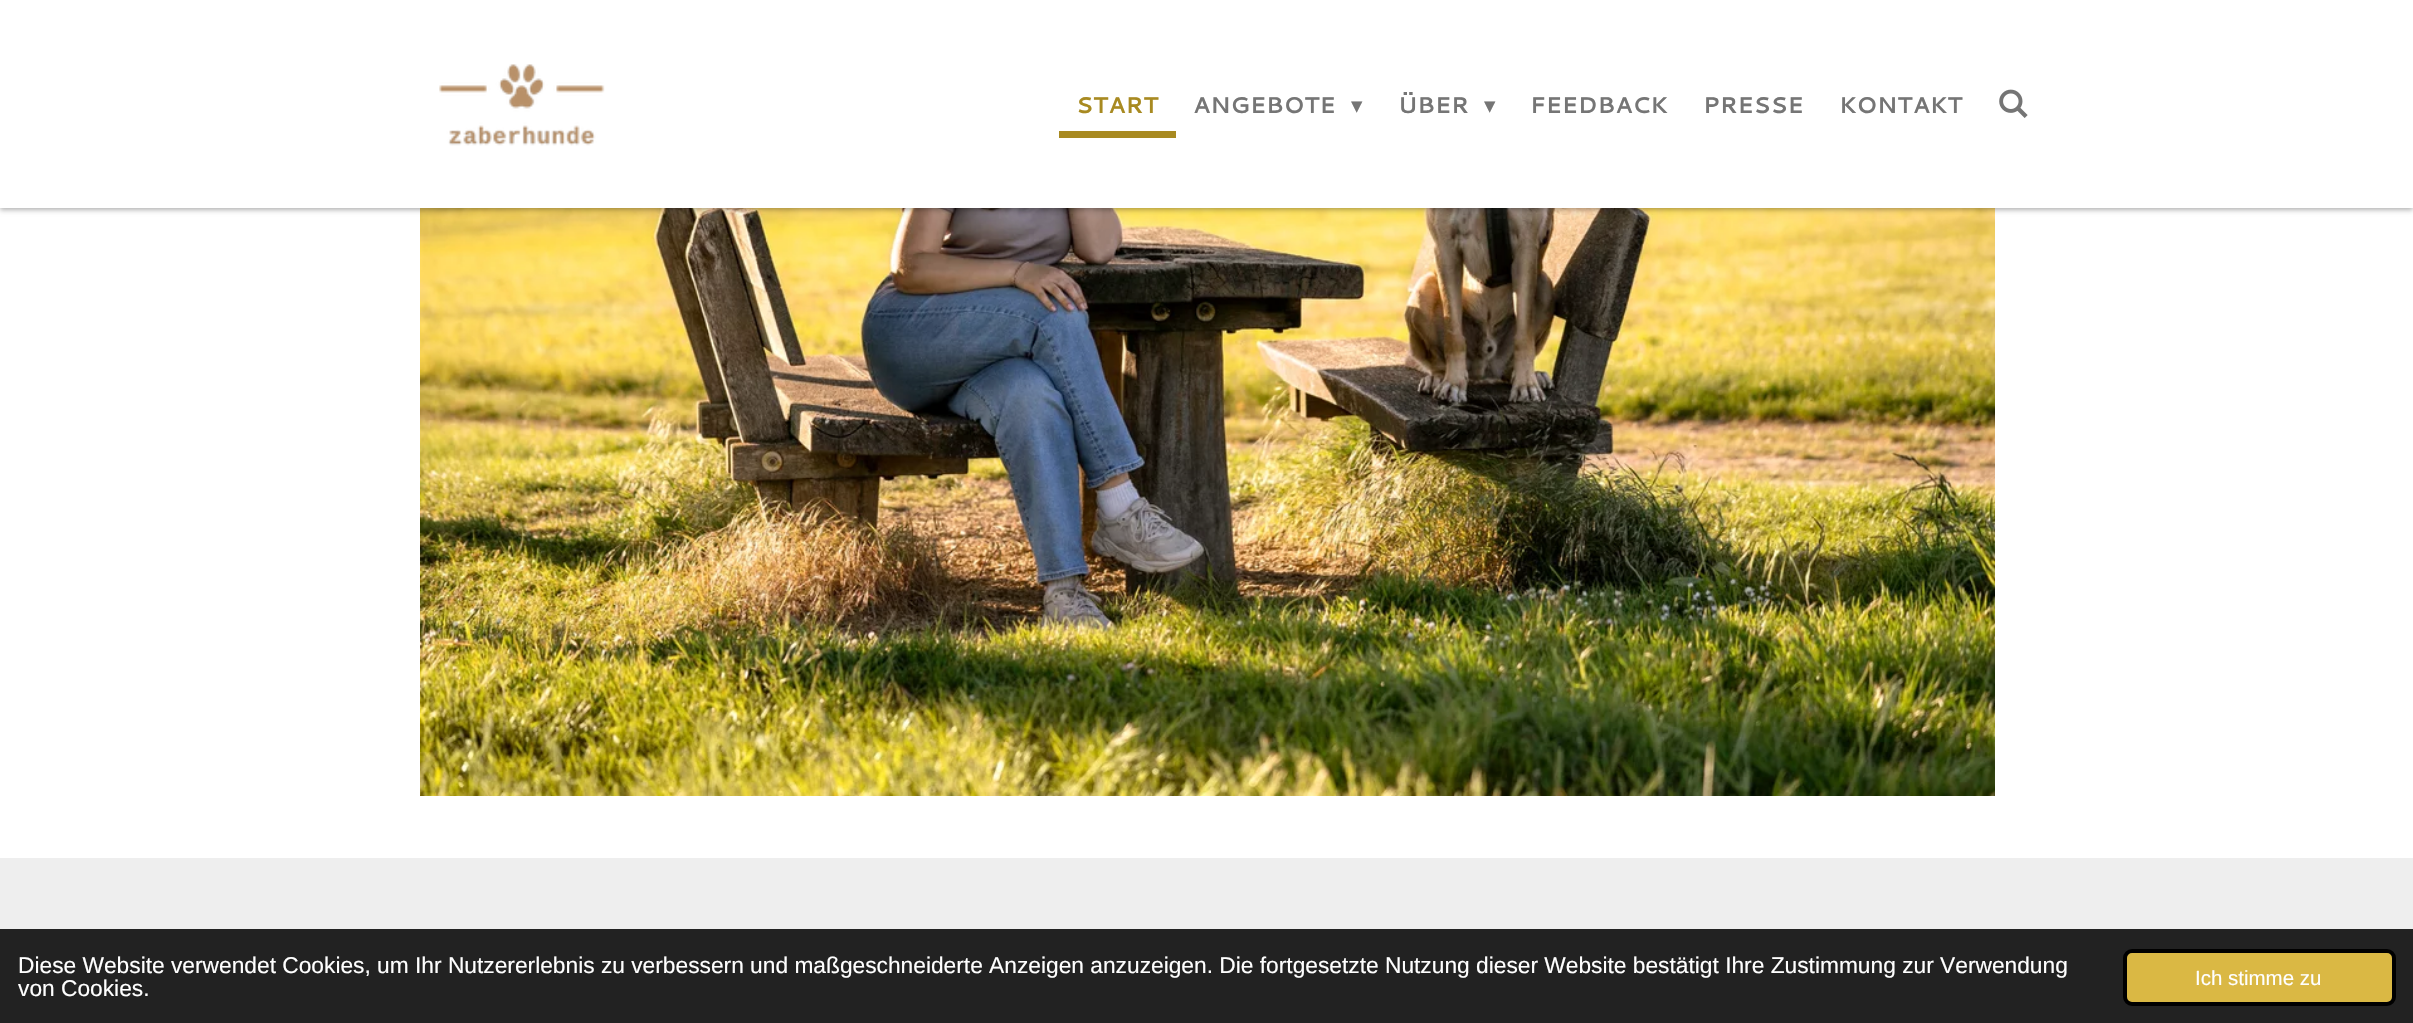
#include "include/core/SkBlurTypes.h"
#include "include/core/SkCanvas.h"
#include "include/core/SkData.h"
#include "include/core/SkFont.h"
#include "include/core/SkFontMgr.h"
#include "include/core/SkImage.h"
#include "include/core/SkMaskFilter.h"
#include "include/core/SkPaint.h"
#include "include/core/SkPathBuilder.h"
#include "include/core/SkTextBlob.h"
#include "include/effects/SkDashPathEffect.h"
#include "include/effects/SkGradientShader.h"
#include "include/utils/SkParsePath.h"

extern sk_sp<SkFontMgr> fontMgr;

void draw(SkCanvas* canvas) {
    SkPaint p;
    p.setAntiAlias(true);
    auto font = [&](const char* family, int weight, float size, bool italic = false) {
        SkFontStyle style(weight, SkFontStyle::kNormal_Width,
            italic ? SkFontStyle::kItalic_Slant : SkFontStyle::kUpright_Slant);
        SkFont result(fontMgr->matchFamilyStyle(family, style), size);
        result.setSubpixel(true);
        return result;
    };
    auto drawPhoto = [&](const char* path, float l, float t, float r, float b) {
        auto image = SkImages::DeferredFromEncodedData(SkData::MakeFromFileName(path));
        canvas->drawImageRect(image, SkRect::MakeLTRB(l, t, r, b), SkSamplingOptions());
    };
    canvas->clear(0xFFFFFFFF);
    drawPhoto("media/3.png", 420, 208, 1995, 796);
    p.setColor(0x4D000000);
    p.setMaskFilter(SkMaskFilter::MakeBlur(kNormal_SkBlurStyle, 2.5f));
    canvas->drawRect(SkRect::MakeLTRB(0, 2, 2413, 210), p);
    p.setMaskFilter(nullptr);
    p.setColor(0xFFFFFFFF);
    canvas->drawRect(SkRect::MakeLTRB(0, 0, 2413, 208), p);
    drawPhoto("media/1.png", 439, 64, 605, 146);
    p.setColor(0xFFA88A21);
    canvas->drawRect(SkRect::MakeLTRB(1059, 131, 1176, 138), p);
    auto font1 = font("Cantarell", 700, 22.75f);
    canvas->drawString("START", 1076, 113, font1, p);
    p.setColor(0xFF757575);
    canvas->drawString("ANGEBOTE", 1193, 113, font1, p);
    auto font2 = font("DejaVu Sans", 400, 22.75f);
    canvas->drawString("▾", 1351, 113, font2, p);
    canvas->drawString("ÜBER", 1398, 113, font1, p);
    canvas->drawString("▾", 1484, 113, font2, p);
    {
        const struct { const char* s; float x, y; } items[] = {
            {"FEEDBACK", 1530, 113},
            {"PRESSE", 1703, 113},
            {"KONTAKT", 1839, 113},
        };
        for (auto [s, x, y] : items) {
            canvas->drawString(s, x, y, font1, p);
        }
    }
    drawPhoto("media/2.png", 1999, 89, 2028, 118);
    p.setColor(0xFFEEEEEE);
    canvas->drawRect(SkRect::MakeLTRB(0, 858, 2413, 929), p);
    p.setColor(0xFF222222);
    canvas->drawRect(SkRect::MakeLTRB(0, 929, 2413, 1023), p);
    auto font3 = font("Liberation Sans", 400, 22.75f);
    p.setColor(0xFFFFFFFF);
    canvas->drawString("Diese Website verwendet Cookies, um Ihr Nutzererlebnis zu verbessern und maßgeschneiderte Anzeigen anzuzeigen. Die fortgesetzte Nutzung dieser Website bestätigt Ihre Zustimmung zur Verwendung", 18, 973, font3, p);
    canvas->drawString("von Cookies.", 18, 996, font3, p);
    p.setColor(0xFFDAB844);
    canvas->drawRoundRect(SkRect::MakeLTRB(2125, 951, 2394, 1004), 7, 7, p);
    p.setStyle(SkPaint::kStroke_Style);
    p.setStrokeWidth(4);
    p.setColor(0xFF000000);
    canvas->drawRoundRect(SkRect::MakeLTRB(2125, 951, 2394, 1004), 7, 7, p);
    auto font4 = font("Liberation Sans", 400, 20.5f);
    p.setStyle(SkPaint::kFill_Style);
    p.setColor(0xFFFFFFFF);
    canvas->drawString("Ich stimme zu", 2195, 985, font4, p);
}
